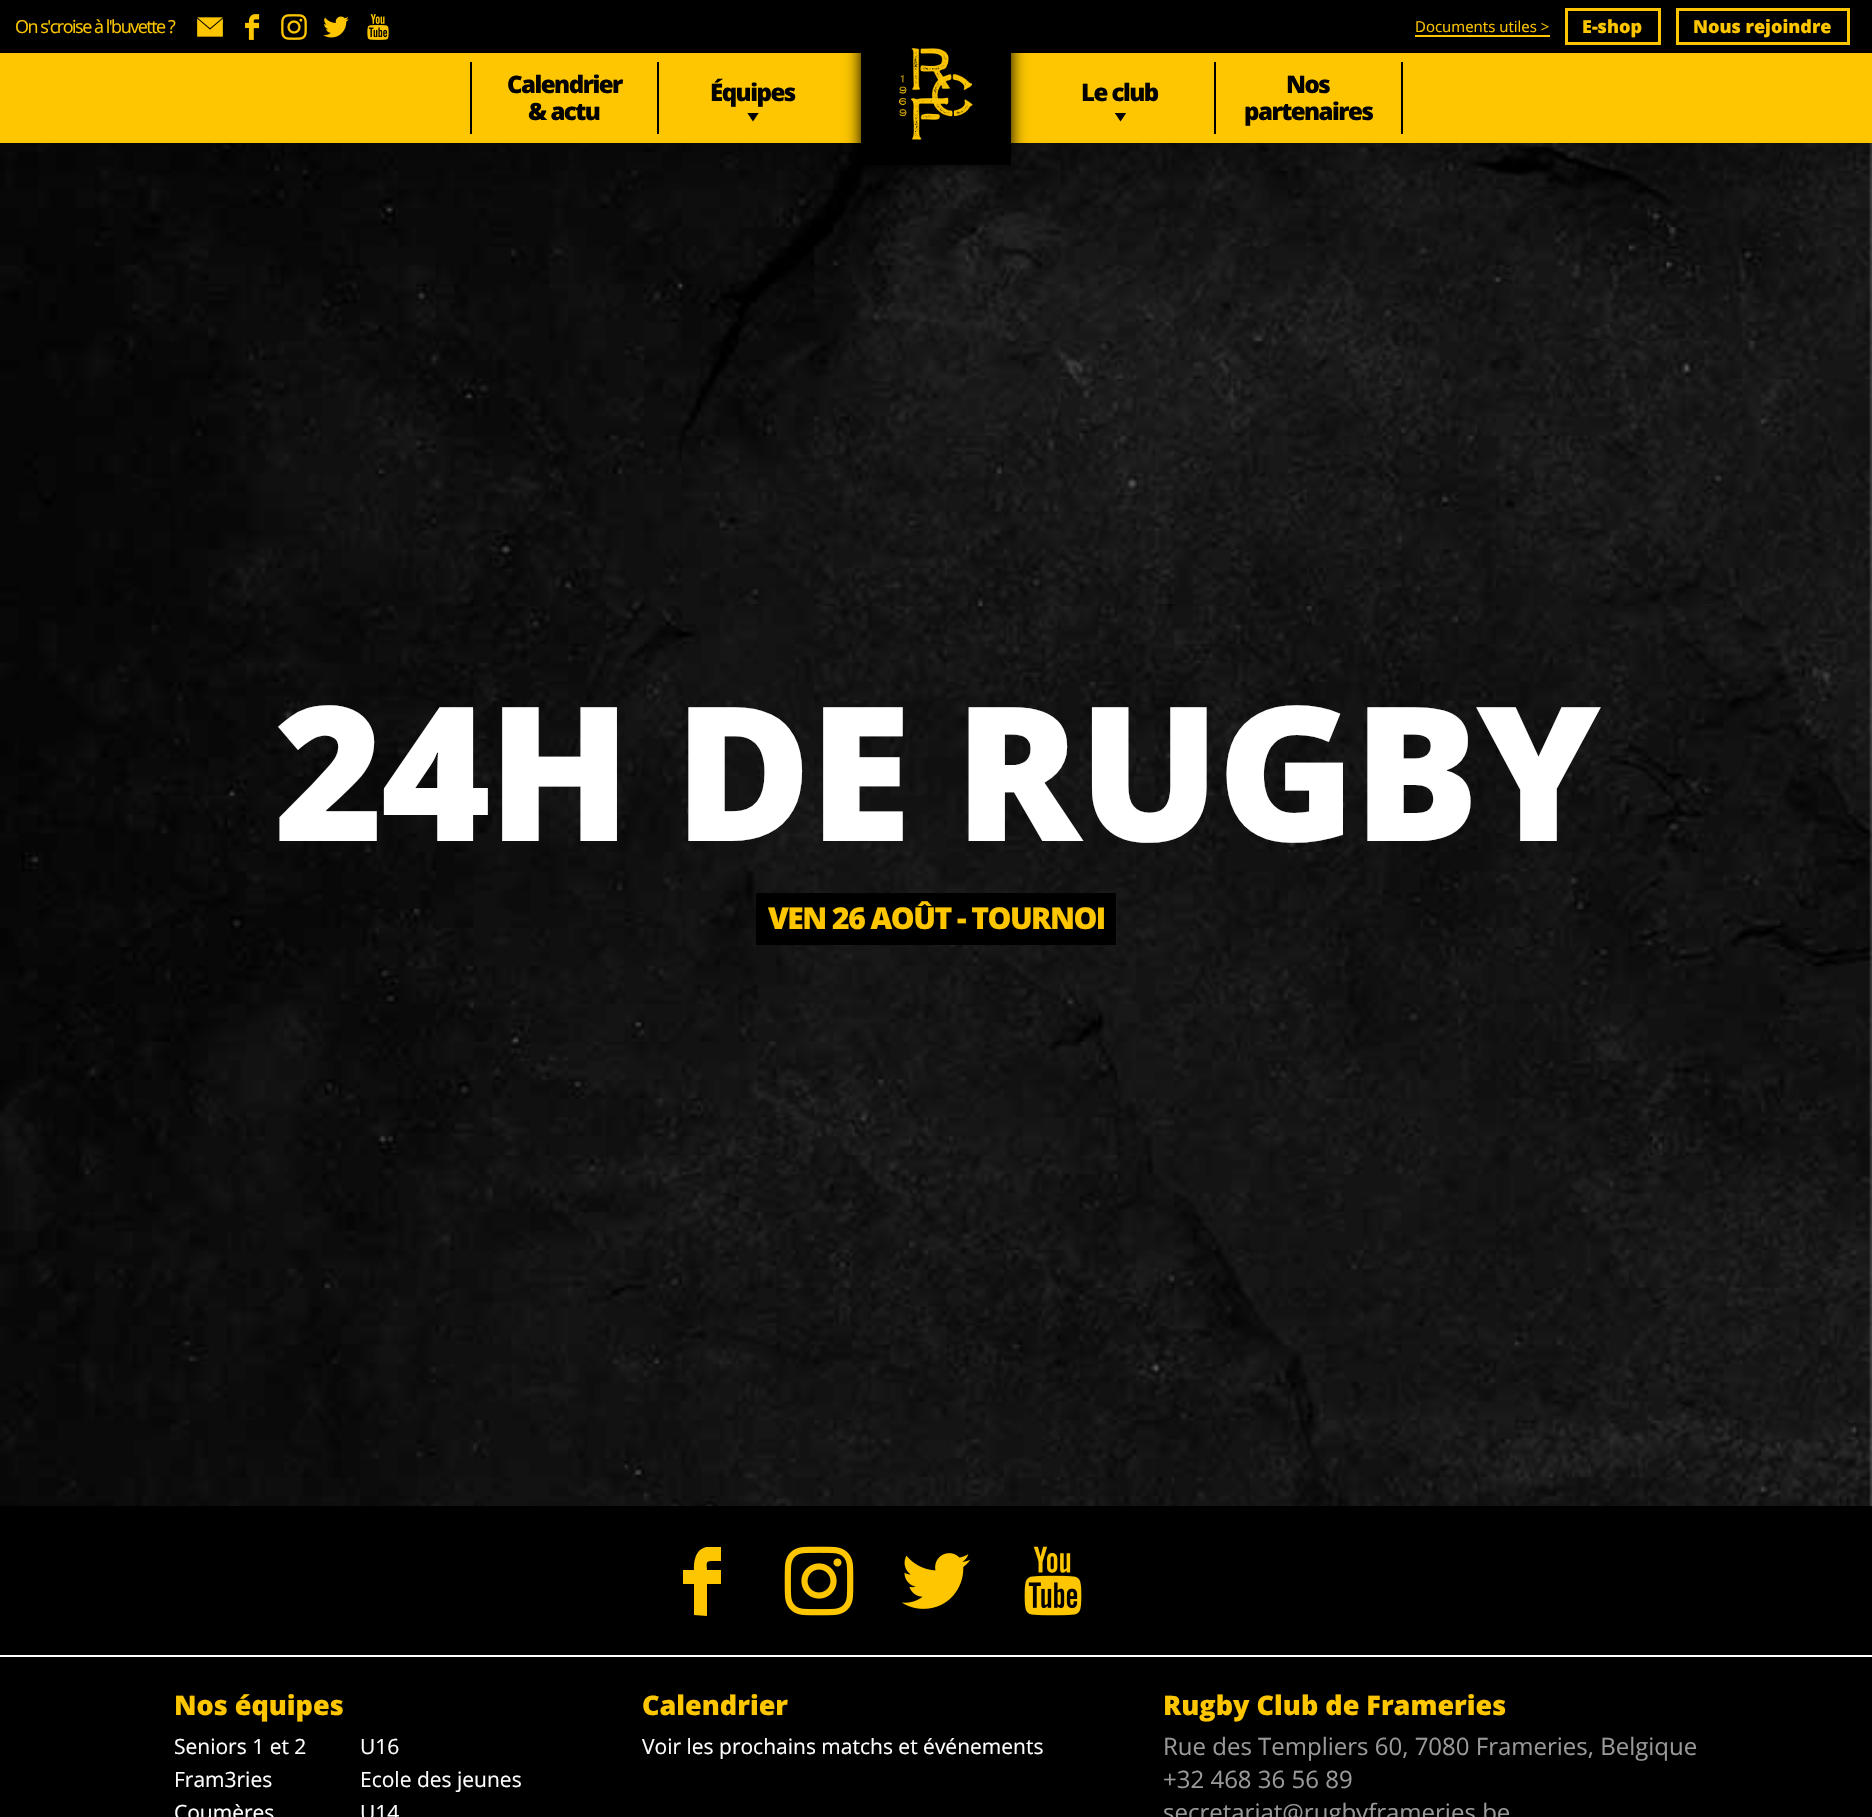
#include "include/core/SkBlurTypes.h"
#include "include/core/SkCanvas.h"
#include "include/core/SkData.h"
#include "include/core/SkFont.h"
#include "include/core/SkFontMgr.h"
#include "include/core/SkImage.h"
#include "include/core/SkMaskFilter.h"
#include "include/core/SkPaint.h"
#include "include/core/SkPathBuilder.h"
#include "include/core/SkTextBlob.h"
#include "include/effects/SkDashPathEffect.h"
#include "include/effects/SkGradientShader.h"
#include "include/utils/SkParsePath.h"

extern sk_sp<SkFontMgr> fontMgr;

void draw(SkCanvas* canvas) {
    SkPaint p;
    p.setAntiAlias(true);
    auto font = [&](const char* family, int weight, float size, bool italic = false) {
        SkFontStyle style(weight, SkFontStyle::kNormal_Width,
            italic ? SkFontStyle::kItalic_Slant : SkFontStyle::kUpright_Slant);
        SkFont result(fontMgr->matchFamilyStyle(family, style), size);
        result.setSubpixel(true);
        return result;
    };
    auto drawTracked = [&](const char* s, float x, float y, const SkFont& font, const SkPaint& ink, float letter, float word) {
        std::vector<SkGlyphID> glyphs(font.countText(s, strlen(s), SkTextEncoding::kUTF8));
        std::vector<float> xs(glyphs.size());
        font.textToGlyphs(s, strlen(s), SkTextEncoding::kUTF8, glyphs);
        font.getXPos(glyphs, xs, x);
        float extra = 0;
        for (size_t i = 0; i < glyphs.size(); i++) {
            xs[i] += extra;
            extra += letter + word * (glyphs[i] == font.unicharToGlyph(' '));
        }
        canvas->drawTextBlob(SkTextBlob::MakeFromPosHGlyphs(glyphs, xs, y, font), 0, 0, ink);
    };
    auto drawPhoto = [&](const char* path, float l, float t, float r, float b) {
        auto image = SkImages::DeferredFromEncodedData(SkData::MakeFromFileName(path));
        canvas->drawImageRect(image, SkRect::MakeLTRB(l, t, r, b), SkSamplingOptions());
    };
    canvas->clear(0xFFFFFFFF);
    p.setColor(0xFFFDC600);
    canvas->drawRect(SkRect::MakeLTRB(0, 53, 1872, 143), p);
    drawPhoto("media/7.png", 0, 143, 1872, 1506);
    canvas->save();
    canvas->clipPath(SkPathBuilder(SkPathFillType::kEvenOdd).moveTo(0, 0).lineTo(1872, 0).lineTo(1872, 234).lineTo(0, 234).close().moveTo(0, 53).lineTo(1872, 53).lineTo(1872, 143).lineTo(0, 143).close().detach(), true);
    p.setColor(0x80000000);
    p.setMaskFilter(SkMaskFilter::MakeBlur(kNormal_SkBlurStyle, 30));
    canvas->drawRect(SkRect::MakeLTRB(0, 53, 1872, 143), p);
    p.setMaskFilter(nullptr);
    canvas->restore();
    p.setColor(0xFF000000);
    canvas->drawRect(SkRect::MakeLTRB(0, 0, 1872, 53), p);
    p.setMaskFilter(SkMaskFilter::MakeBlur(kNormal_SkBlurStyle, 7.5f));
    canvas->drawRect(SkRect::MakeLTRB(861, 30, 1011, 165), p);
    p.setMaskFilter(nullptr);
    canvas->drawRect(SkRect::MakeLTRB(861, 53, 1011, 165), p);
    drawPhoto("media/1.png", 899, 48, 973, 140);
    auto font1 = font("Open Sans", 400, 18);
    p.setColor(0xFFFDC600);
    drawTracked("On s'croise à l'buvette ?", 15, 33, font1, p, -1.5f, 0);
    drawPhoto("media/2.png", 197, 17, 223, 37);
    drawPhoto("media/3.png", 245, 14, 260, 40);
    drawPhoto("media/4.png", 281, 14, 307, 40);
    drawPhoto("media/5.png", 323, 16, 349, 38);
    drawPhoto("media/6.png", 367, 14, 389, 40);
    auto font2 = font("Open Sans", 400, 15);
    canvas->drawString("Documents utiles >", 1415, 32, font2, p);
    canvas->drawRect(SkRect::MakeLTRB(1415, 35, 1550, 37), p);
    p.setStyle(SkPaint::kStroke_Style);
    p.setStrokeWidth(3);
    canvas->drawRect(SkRect::MakeLTRB(1566.5f, 9.5f, 1659.5f, 43.5f), p);
    auto font3 = font("Open Sans", 800, 18);
    p.setStyle(SkPaint::kFill_Style);
    canvas->drawString("E-shop", 1582, 33, font3, p);
    p.setStyle(SkPaint::kStroke_Style);
    canvas->drawRect(SkRect::MakeLTRB(1677.5f, 9.5f, 1848.5f, 43.5f), p);
    p.setStyle(SkPaint::kFill_Style);
    canvas->drawString("Nous rejoindre", 1693, 33, font3, p);
    p.setColor(0xFF000000);
    canvas->drawRect(SkRect::MakeLTRB(470, 62, 472, 134), p);
    canvas->drawRect(SkRect::MakeLTRB(657, 62, 659, 134), p);
    auto font4 = font("Open Sans", 800, 24);
    {
        const struct { const char* s; float x, y; } items[] = {
            {"Calendrier", 507, 93},
            {"& actu", 528, 120},
            {"Équipes", 710, 101},
        };
        for (auto [s, x, y] : items) {
            drawTracked(s, x, y, font4, p, -1.5f, 0);
        }
    }
    canvas->save();
    canvas->clipRect(SkRect::MakeLTRB(747, 113, 759, 125));
    canvas->drawPath(SkPathBuilder().moveTo(747, 112.5f).lineTo(759, 112.5f).lineTo(753, 121.5f).close().detach(), p);
    canvas->restore();
    canvas->drawRect(SkRect::MakeLTRB(1401, 62, 1403, 134), p);
    drawTracked("Le club", 1081, 101, font4, p, -1.5f, 0);
    canvas->save();
    canvas->clipRect(SkRect::MakeLTRB(1115, 113, 1127, 125));
    canvas->drawPath(SkPathBuilder().moveTo(1114.5f, 112.5f).lineTo(1126.5f, 112.5f).lineTo(1120.5f, 121.5f).close().detach(), p);
    canvas->restore();
    canvas->drawRect(SkRect::MakeLTRB(1214, 62, 1216, 134), p);
    drawTracked("Nos", 1286, 93, font4, p, -1.5f, 0);
    drawTracked("partenaires", 1244, 120, font4, p, -1.5f, 0);
    auto font5 = font("Open Sans", 800, 187.5f);
    p.setColor(0xFFFFFFFF);
    drawTracked("24H DE RUGBY", 274, 841, font5, p, -3, 0);
    p.setColor(0xFF000000);
    canvas->drawRect(SkRect::MakeLTRB(756, 893, 1116, 945), p);
    auto font6 = font("Open Sans", 800, 30);
    p.setColor(0xFFFDC600);
    drawTracked("VEN 26 AOÛT - TOURNOI", 768, 929, font6, p, -1.5f, 0);
    p.setColor(0xFF000000);
    canvas->drawRect(SkRect::MakeLTRB(0, 1506, 1872, 1817), p);
    p.setColor(0xFFFFFFFF);
    canvas->drawRect(SkRect::MakeLTRB(0, 1655, 1872, 1657), p);
    p.setColor(0xFFFDC600);
    canvas->drawPath(SkPathBuilder().moveTo(694, 1615).lineTo(694, 1584).lineTo(683, 1584).lineTo(683, 1570).lineTo(694, 1570).cubicTo(694, 1561, 695, 1550, 706, 1547).lineTo(721, 1547).lineTo(721, 1561).lineTo(711, 1561).cubicTo(705, 1561, 707, 1565, 707, 1570).lineTo(721, 1570).lineTo(721, 1584).lineTo(707, 1584).lineTo(707, 1616).close().detach(), p);
    drawPhoto("media/8.png", 784, 1546, 854, 1616);
    drawPhoto("media/9.png", 901, 1553, 971, 1609);
    drawPhoto("media/10.png", 1024, 1546, 1082, 1616);
    auto font7 = font("Open Sans", 800, 27);
    canvas->drawString("Nos équipes", 174, 1715, font7, p);
    auto font8 = font("Open Sans", 400, 21);
    p.setColor(0xFFFFFFFF);
    {
        const struct { const char* s; float x, y; } items[] = {
            {"Seniors 1 et 2", 174, 1754},
            {"U16", 360, 1754},
            {"Fram3ries", 174, 1787},
            {"Ecole des jeunes", 360, 1787},
            {"Coumères", 174, 1820},
            {"U14", 360, 1820},
        };
        for (auto [s, x, y] : items) {
            canvas->drawString(s, x, y, font8, p);
        }
    }
    p.setColor(0xFFFDC600);
    canvas->drawString("Calendrier", 642, 1715, font7, p);
    p.setColor(0xFFFFFFFF);
    canvas->drawString("Voir les prochains matchs et événements", 642, 1754, font8, p);
    p.setColor(0xFFFDC600);
    canvas->drawString("Rugby Club de Frameries", 1163, 1715, font7, p);
    auto font9 = font("Open Sans", 400, 24);
    p.setColor(0xFF999999);
    {
        const struct { const char* s; float x, y; } items[] = {
            {"Rue des Templiers 60, 7080 Frameries, Belgique", 1163, 1755},
            {"+32 468 36 56 89", 1163, 1788},
            {"secretariat@rugbyframeries.be", 1163, 1821},
        };
        for (auto [s, x, y] : items) {
            canvas->drawString(s, x, y, font9, p);
        }
    }
}
